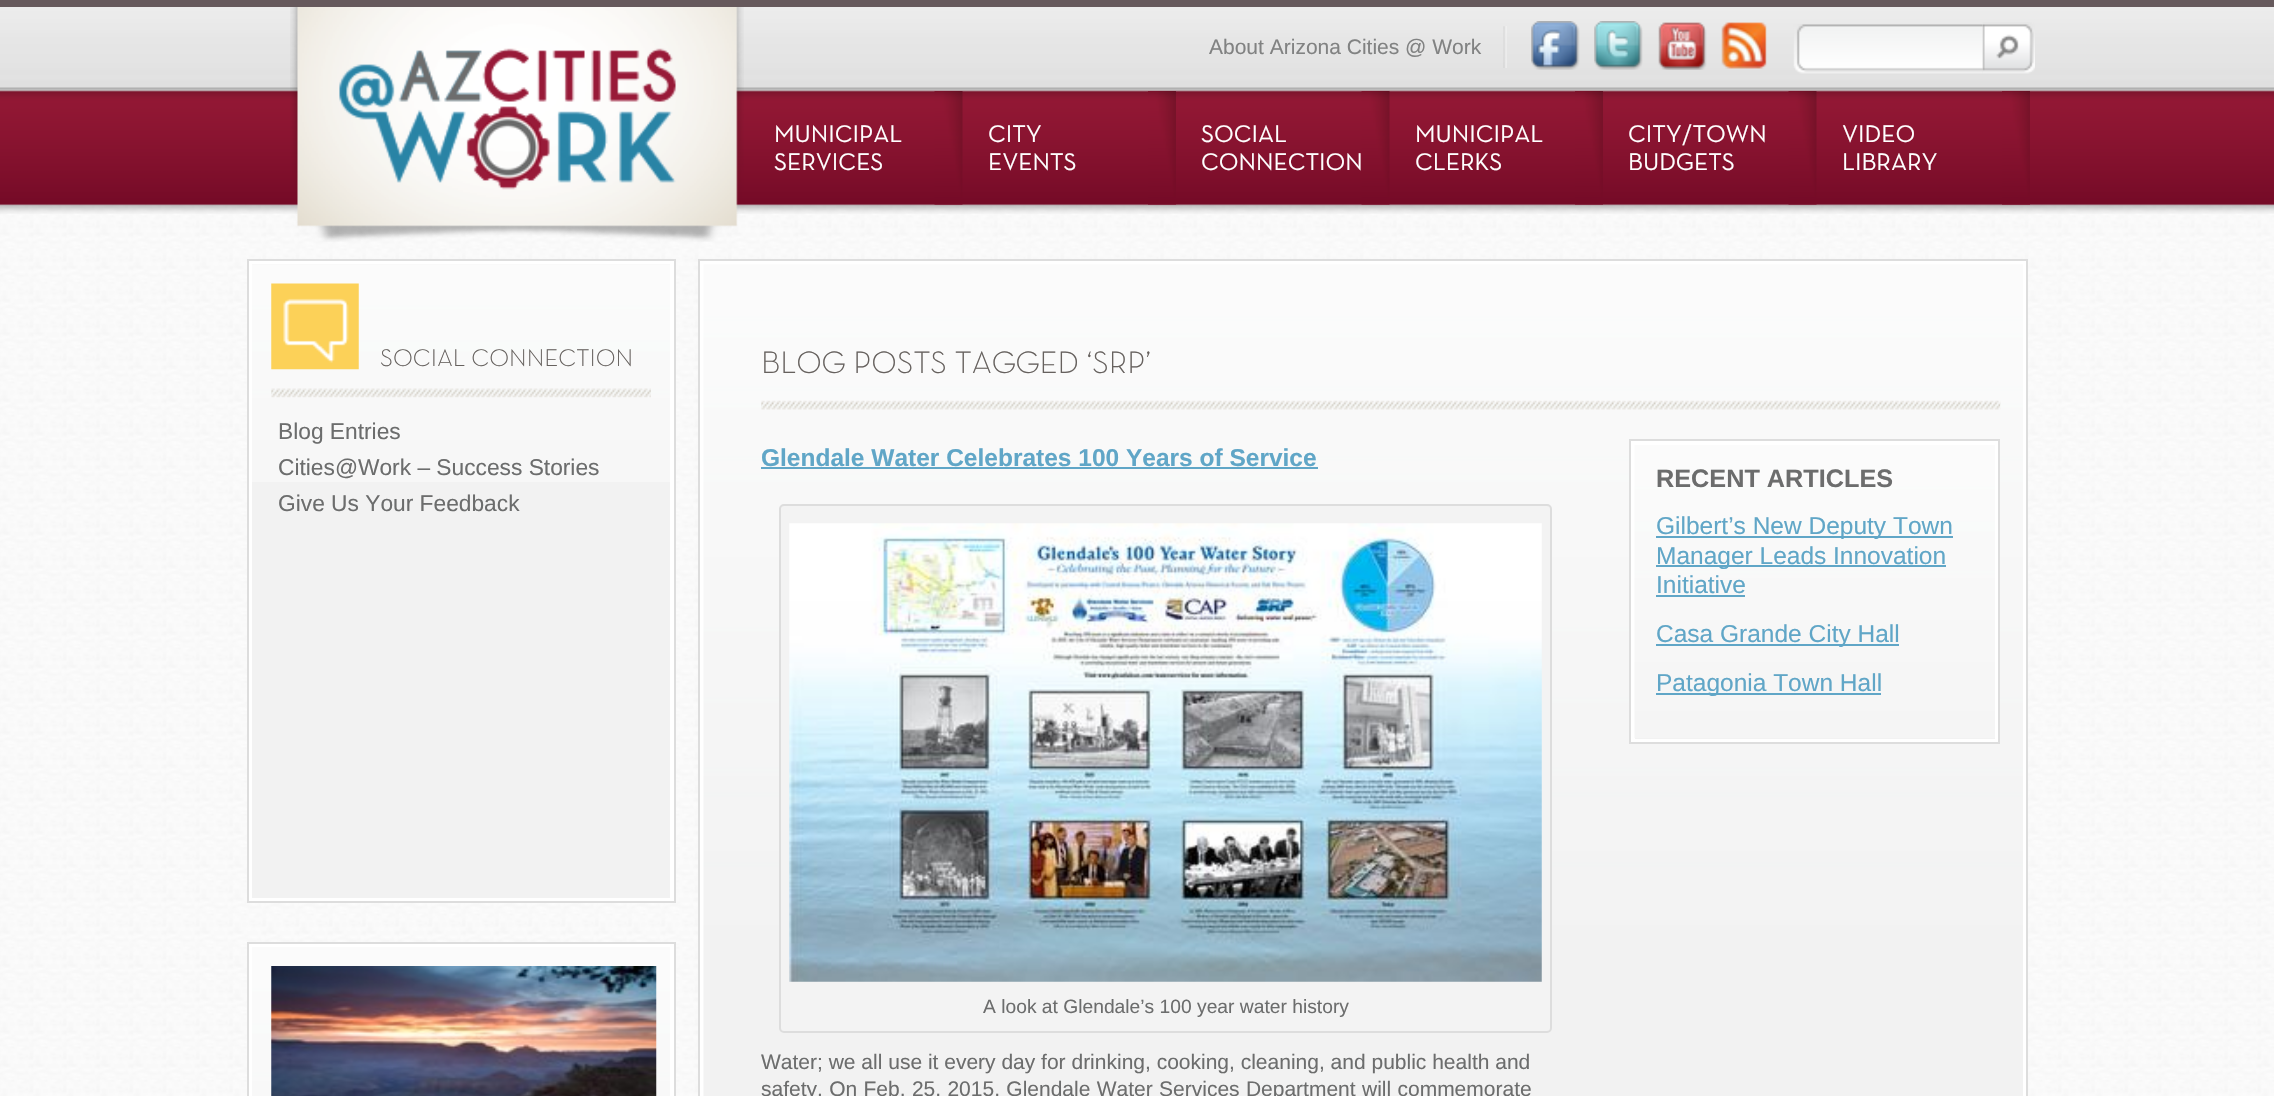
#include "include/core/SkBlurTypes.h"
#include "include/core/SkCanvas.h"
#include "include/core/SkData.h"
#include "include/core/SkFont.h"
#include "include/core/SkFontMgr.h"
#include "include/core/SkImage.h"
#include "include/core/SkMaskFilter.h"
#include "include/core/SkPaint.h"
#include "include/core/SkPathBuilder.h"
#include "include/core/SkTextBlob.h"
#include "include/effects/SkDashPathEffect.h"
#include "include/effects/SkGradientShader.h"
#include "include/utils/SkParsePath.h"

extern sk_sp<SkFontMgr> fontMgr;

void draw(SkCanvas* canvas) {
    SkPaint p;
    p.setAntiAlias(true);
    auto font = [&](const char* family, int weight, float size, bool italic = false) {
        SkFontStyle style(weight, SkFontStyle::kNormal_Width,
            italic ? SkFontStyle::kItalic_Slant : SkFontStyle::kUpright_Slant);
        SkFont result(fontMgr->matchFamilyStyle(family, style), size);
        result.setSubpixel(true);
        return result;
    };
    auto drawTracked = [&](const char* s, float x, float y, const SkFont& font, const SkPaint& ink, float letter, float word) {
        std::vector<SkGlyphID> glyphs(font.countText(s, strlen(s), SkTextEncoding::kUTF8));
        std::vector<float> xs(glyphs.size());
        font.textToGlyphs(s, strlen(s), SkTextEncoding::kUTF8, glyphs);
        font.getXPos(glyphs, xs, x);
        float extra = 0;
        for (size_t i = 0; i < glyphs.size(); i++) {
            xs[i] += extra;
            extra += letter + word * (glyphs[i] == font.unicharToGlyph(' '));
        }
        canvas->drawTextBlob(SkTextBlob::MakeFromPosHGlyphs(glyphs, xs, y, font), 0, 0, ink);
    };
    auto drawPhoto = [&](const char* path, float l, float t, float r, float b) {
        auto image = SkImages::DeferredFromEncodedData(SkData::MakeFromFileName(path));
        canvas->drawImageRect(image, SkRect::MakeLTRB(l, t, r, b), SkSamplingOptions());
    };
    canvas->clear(0xFFFFFFFF);
    drawPhoto("media/1.png", 0, 204, 2274, 1096);
    drawPhoto("media/2.png", 0, 7, 2274, 214);
    p.setColor(0xFF66595C);
    canvas->drawRect(SkRect::MakeLTRB(0, 0, 2274, 7), p);
    drawPhoto("media/3.png", 290, 7, 744, 242);
    drawPhoto("media/4.png", 1503, 26, 1507, 68);
    auto font1 = font("Liberation Sans", 400, 21);
    p.setColor(0xFF818282);
    canvas->drawString("About Arizona Cities @ Work", 1209, 54, font1, p);
    drawPhoto("media/5.png", 1531, 21, 1580, 70);
    drawPhoto("media/6.png", 1594, 21, 1643, 70);
    drawPhoto("media/7.png", 1658, 22, 1707, 70);
    drawPhoto("media/8.png", 1721, 22, 1767, 69);
    drawPhoto("media/9.png", 1793, 24, 1983, 74);
    drawPhoto("media/10.png", 1982, 22, 2035, 74);
    drawPhoto("media/11.png", 934, 91, 963, 205);
    auto font2 = font("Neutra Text", 400, 24.5f);
    p.setColor(0xFFFFFFFF);
    canvas->drawString("MUNICIPAL", 774, 142, font2, p);
    canvas->drawString("SERVICES", 774, 170, font2, p);
    drawPhoto("media/12.png", 1148, 91, 1176, 205);
    canvas->drawString("CITY", 988, 142, font2, p);
    canvas->drawString("EVENTS", 988, 170, font2, p);
    drawPhoto("media/13.png", 1361, 91, 1390, 205);
    canvas->drawString("SOCIAL", 1201, 142, font2, p);
    canvas->drawString("CONNECTION", 1201, 170, font2, p);
    drawPhoto("media/14.png", 1575, 91, 1603, 205);
    canvas->drawString("MUNICIPAL", 1415, 142, font2, p);
    canvas->drawString("CLERKS", 1415, 170, font2, p);
    drawPhoto("media/15.png", 1788, 91, 1817, 205);
    canvas->drawString("CITY/TOWN", 1628, 142, font2, p);
    canvas->drawString("BUDGETS", 1628, 170, font2, p);
    drawPhoto("media/16.png", 2002, 91, 2030, 205);
    canvas->drawString("VIDEO", 1842, 142, font2, p);
    canvas->drawString("LIBRARY", 1842, 170, font2, p);
    canvas->drawRect(SkRect::MakeLTRB(248, 260, 675, 902), p);
    p.setStyle(SkPaint::kStroke_Style);
    p.setStrokeWidth(2);
    p.setColor(0xFFDDDDDD);
    canvas->drawRect(SkRect::MakeLTRB(248, 260, 675, 902), p);
    p.setStyle(SkPaint::kFill_Style);
    p.setColor(0xFFF2F2F2);
    canvas->drawRect(SkRect::MakeLTRB(252, 264, 670, 898), p);
    drawPhoto("media/17.png", 252, 264, 670, 482);
    drawPhoto("media/18.png", 271, 388, 651, 398);
    drawPhoto("media/19.png", 271, 283, 359, 370);
    auto font3 = font("Neutra Text", 300, 24.5f);
    p.setColor(0xFF66615E);
    canvas->drawString("SOCIAL CONNECTION", 380, 366, font3, p);
    auto font4 = font("Liberation Sans", 400, 22.75f);
    p.setColor(0xFF6C6D6D);
    {
        const struct { const char* s; float x, y; } items[] = {
            {"Blog Entries", 278, 439},
            {"Cities@Work – Success Stories", 278, 475},
            {"Give Us Your Feedback", 278, 511},
        };
        for (auto [s, x, y] : items) {
            canvas->drawString(s, x, y, font4, p);
        }
    }
    p.setColor(0xFFFFFFFF);
    canvas->drawRect(SkRect::MakeLTRB(248, 943, 675, 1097), p);
    p.setStyle(SkPaint::kStroke_Style);
    p.setColor(0xFFDDDDDD);
    canvas->drawRect(SkRect::MakeLTRB(248, 943, 675, 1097), p);
    drawPhoto("media/20.png", 252, 947, 670, 1096);
    drawPhoto("media/21.png", 271, 966, 657, 1096);
    p.setStyle(SkPaint::kFill_Style);
    p.setColor(0xFFFFFFFF);
    canvas->drawRect(SkRect::MakeLTRB(699, 260, 2027, 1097), p);
    p.setStyle(SkPaint::kStroke_Style);
    p.setColor(0xFFDDDDDD);
    canvas->drawRect(SkRect::MakeLTRB(699, 260, 2027, 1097), p);
    drawPhoto("media/22.png", 703, 264, 2023, 1096);
    drawPhoto("media/23.png", 761, 400, 2001, 410);
    auto font5 = font("Neutra Text", 300, 31.5f);
    p.setStyle(SkPaint::kFill_Style);
    p.setColor(0xFF66615E);
    canvas->drawString("BLOG POSTS TAGGED ‘SRP’", 761, 373, font5, p);
    auto font6 = font("Liberation Sans", 700, 24.5f);
    p.setColor(0xFF60A6C7);
    canvas->drawString("Glendale Water Celebrates 100 Years of Service", 761, 466, font6, p);
    canvas->drawRect(SkRect::MakeLTRB(761, 467, 1318, 469), p);
    p.setColor(0xFFF3F3F3);
    canvas->drawRoundRect(SkRect::MakeLTRB(780, 505, 1551, 1032), 4, 4, p);
    p.setStyle(SkPaint::kStroke_Style);
    p.setColor(0xFFDDDDDD);
    canvas->drawRoundRect(SkRect::MakeLTRB(780, 505, 1551, 1032), 4, 4, p);
    drawPhoto("media/24.png", 789, 523, 1542, 982);
    auto font7 = font("Liberation Sans", 400, 19.25f);
    p.setStyle(SkPaint::kFill_Style);
    p.setColor(0xFF6C6D6D);
    canvas->drawString("A look at Glendale’s 100 year water history", 983, 1013, font7, p);
    canvas->drawString("Water; we all use it every day for drinking, cooking, cleaning, and public health and", 761, 1069, font1, p);
    drawTracked("safety. On Feb. 25, 2015, Glendale Water Services Department will commemorate", 761, 1096, font1, p, 0, 0.5f);
    p.setColor(0xFFFFFFFF);
    canvas->drawRect(SkRect::MakeLTRB(1630, 440, 1999, 743), p);
    p.setStyle(SkPaint::kStroke_Style);
    p.setColor(0xFFDDDDDD);
    canvas->drawRect(SkRect::MakeLTRB(1630, 440, 1999, 743), p);
    p.setStyle(SkPaint::kFill_Style);
    p.setColor(0xFFF2F2F2);
    canvas->drawRect(SkRect::MakeLTRB(1635, 738, 1995, 739), p);
    drawPhoto("media/25.png", 1634, 445, 1995, 738);
    auto font8 = font("Liberation Sans", 700, 25.25f);
    p.setColor(0xFF6C6D6D);
    canvas->drawString("RECENT ARTICLES", 1656, 487, font8, p);
    p.setColor(0xFF60A6C7);
    canvas->drawRect(SkRect::MakeLTRB(1656, 536, 1953, 538), p);
    auto font9 = font("Liberation Sans", 400, 24.5f);
    canvas->drawString("Gilbert’s New Deputy Town", 1656, 534, font9, p);
    canvas->drawRect(SkRect::MakeLTRB(1656, 565, 1946, 567), p);
    canvas->drawString("Manager Leads Innovation", 1656, 564, font9, p);
    canvas->drawString("Initiative", 1656, 593, font9, p);
    canvas->drawRect(SkRect::MakeLTRB(1656, 595, 1745, 597), p);
    canvas->drawRect(SkRect::MakeLTRB(1656, 644, 1899, 646), p);
    canvas->drawString("Casa Grande City Hall", 1656, 642, font9, p);
    canvas->drawRect(SkRect::MakeLTRB(1656, 693, 1881, 695), p);
    canvas->drawString("Patagonia Town Hall", 1656, 691, font9, p);
}
